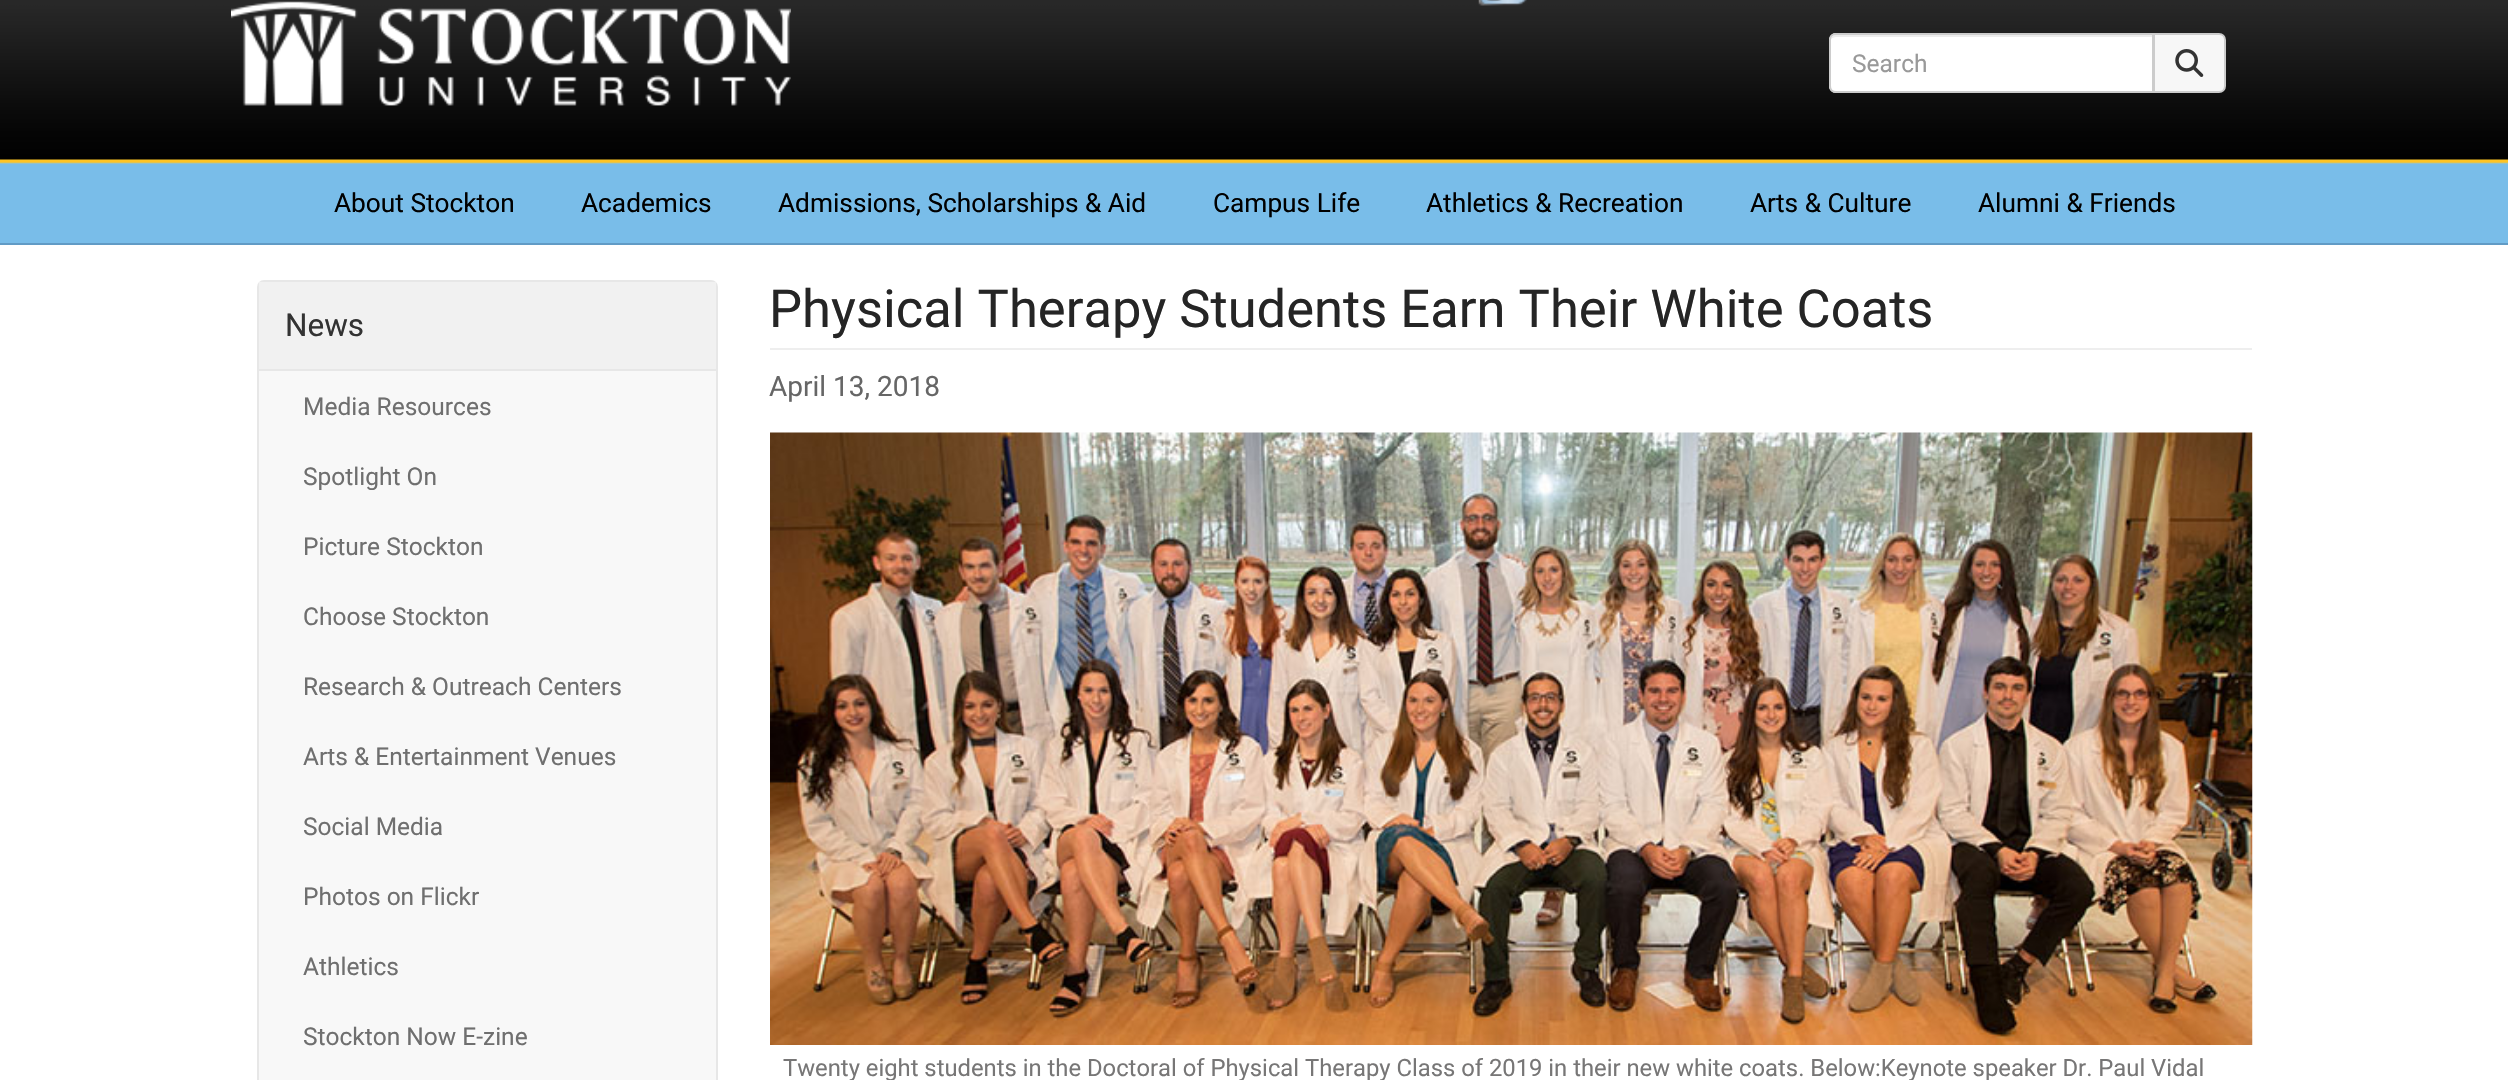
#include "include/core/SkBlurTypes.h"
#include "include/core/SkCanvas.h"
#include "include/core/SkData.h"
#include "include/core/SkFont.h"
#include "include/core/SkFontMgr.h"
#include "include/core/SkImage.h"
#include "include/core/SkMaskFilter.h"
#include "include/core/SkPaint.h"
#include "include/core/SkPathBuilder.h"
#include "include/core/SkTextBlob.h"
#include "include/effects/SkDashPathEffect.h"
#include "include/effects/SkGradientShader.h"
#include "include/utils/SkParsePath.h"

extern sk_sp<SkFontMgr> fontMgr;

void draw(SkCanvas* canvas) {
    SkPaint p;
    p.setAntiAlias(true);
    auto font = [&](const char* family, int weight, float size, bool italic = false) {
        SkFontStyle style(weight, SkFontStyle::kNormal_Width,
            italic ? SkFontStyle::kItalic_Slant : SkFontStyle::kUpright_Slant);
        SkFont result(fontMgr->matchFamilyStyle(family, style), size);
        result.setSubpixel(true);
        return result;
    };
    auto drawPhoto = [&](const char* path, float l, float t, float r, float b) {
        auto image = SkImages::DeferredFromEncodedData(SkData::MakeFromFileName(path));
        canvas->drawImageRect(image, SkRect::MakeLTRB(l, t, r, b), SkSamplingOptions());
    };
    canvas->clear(0xFF79BDE9);
    drawPhoto("media/1.png", 0, 0, 2508, 164);
    p.setColor(0xFF619BC5);
    canvas->drawRect(SkRect::MakeLTRB(0, 243, 2508, 245), p);
    drawPhoto("media/2.png", 231, 1, 791, 106);
    drawPhoto("media/3.png", 1478, 0, 1527, 6);
    p.setColor(0xFFFFFFFF);
    canvas->drawPath(SkPathBuilder().moveTo(1836, 33).lineTo(2154, 33).lineTo(2154, 93).lineTo(1836, 93).cubicTo(1832, 93, 1829, 90, 1829, 86).lineTo(1829, 40).cubicTo(1829, 36, 1832, 33, 1836, 33).close().detach(), p);
    p.setColor(0xFFECECEC);
    canvas->drawPath(SkPathBuilder().moveTo(1836, 37).lineTo(2152, 37).lineTo(2152, 91).lineTo(2153, 91).lineTo(2153, 35).lineTo(1836, 35).cubicTo(1834, 35, 1831, 37, 1831, 39).cubicTo(1832, 38, 1834, 37, 1836, 37).close().detach(), p);
    p.setStyle(SkPaint::kStroke_Style);
    p.setStrokeWidth(2);
    p.setColor(0xFFCCCCCC);
    canvas->drawPath(SkPathBuilder().moveTo(1836, 34).lineTo(2153, 34).lineTo(2153, 92).lineTo(1836, 92).cubicTo(1832.5f, 92, 1830, 89.5f, 1830, 86).lineTo(1830, 40).cubicTo(1830, 36.5f, 1832.5f, 34, 1836, 34).close().detach(), p);
    auto font1 = font("Roboto", 400, 24.5f);
    p.setStyle(SkPaint::kFill_Style);
    p.setColor(0xFF999999);
    canvas->drawString("Search", 1852, 72, font1, p);
    p.setColor(0xFFF7F7F7);
    canvas->drawPath(SkPathBuilder().moveTo(2154, 34).lineTo(2219, 34).cubicTo(2222.5f, 34, 2225, 36.5f, 2225, 40).lineTo(2225, 86).cubicTo(2225, 89.5f, 2222.5f, 92, 2219, 92).lineTo(2154, 92).close().detach(), p);
    p.setStyle(SkPaint::kStroke_Style);
    p.setColor(0xFFCCCCCC);
    canvas->drawPath(SkPathBuilder().moveTo(2154, 34).lineTo(2219, 34).cubicTo(2222.5f, 34, 2225, 36.5f, 2225, 40).lineTo(2225, 86).cubicTo(2225, 89.5f, 2222.5f, 92, 2219, 92).lineTo(2154, 92).close().detach(), p);
    drawPhoto("media/4.png", 2175, 49, 2204, 77);
    auto font2 = font("Roboto", 400, 26.25f);
    p.setStyle(SkPaint::kFill_Style);
    p.setColor(0xFF000000);
    {
        const struct { const char* s; float x, y; } items[] = {
            {"About Stockton", 334, 212},
            {"Academics", 581, 212},
            {"Admissions, Scholarships & Aid", 778, 212},
            {"Campus Life", 1213, 212},
            {"Athletics & Recreation", 1426, 212},
            {"Arts & Culture", 1750, 212},
            {"Alumni & Friends", 1978, 212},
        };
        for (auto [s, x, y] : items) {
            canvas->drawString(s, x, y, font2, p);
        }
    }
    p.setColor(0xFFFFFFFF);
    canvas->drawRect(SkRect::MakeLTRB(0, 245, 2508, 1080), p);
    p.setColor(0xFFF8F8F8);
    canvas->drawRoundRect(SkRect::MakeLTRB(258, 281, 717, 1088), 6, 6, p);
    p.setStyle(SkPaint::kStroke_Style);
    p.setColor(0xFFE7E7E7);
    canvas->drawRoundRect(SkRect::MakeLTRB(258, 281, 717, 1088), 6, 6, p);
    p.setStyle(SkPaint::kFill_Style);
    p.setColor(0xFFF1F1F1);
    canvas->drawRect(SkRect::MakeLTRB(259, 282, 716, 369), p);
    p.setColor(0xFFE7E7E7);
    canvas->drawRect(SkRect::MakeLTRB(259, 369, 716, 371), p);
    auto font3 = font("Roboto", 400, 31.5f);
    p.setColor(0xFF333333);
    canvas->drawString("News", 285, 336, font3, p);
    p.setColor(0xFF6F6F6F);
    {
        const struct { const char* s; float x, y; } items[] = {
            {"Media Resources", 303, 415},
            {"Spotlight On", 303, 485},
            {"Picture Stockton", 303, 555},
            {"Choose Stockton", 303, 625},
            {"Research & Outreach Centers", 303, 695},
            {"Arts & Entertainment Venues", 303, 765},
            {"Social Media", 303, 835},
            {"Photos on Flickr", 303, 905},
            {"Athletics", 303, 975},
            {"Stockton Now E-zine", 303, 1045},
        };
        for (auto [s, x, y] : items) {
            canvas->drawString(s, x, y, font1, p);
        }
    }
    p.setColor(0xFFEEEEEE);
    canvas->drawRect(SkRect::MakeLTRB(770, 348, 2252, 350), p);
    auto font4 = font("Roboto", 400, 52.5f);
    p.setColor(0xFF252525);
    canvas->drawString("Physical Therapy Students Earn Their White Coats", 769, 327, font4, p);
    auto font5 = font("Roboto", 400, 28);
    p.setColor(0xFF666666);
    canvas->drawString("April 13, 2018", 769, 396, font5, p);
    drawPhoto("media/5.png", 770, 432, 2253, 1045);
    auto font6 = font("Roboto", 400, 23.8f);
    p.setColor(0xFF777676);
    canvas->drawString("Twenty eight students in the Doctoral of Physical Therapy Class of 2019 in their new", 783, 1076, font6, p);
    canvas->drawString("white coats. Below:Keynote speaker Dr. Paul Vidal", 1676, 1076, font6, p);
}
